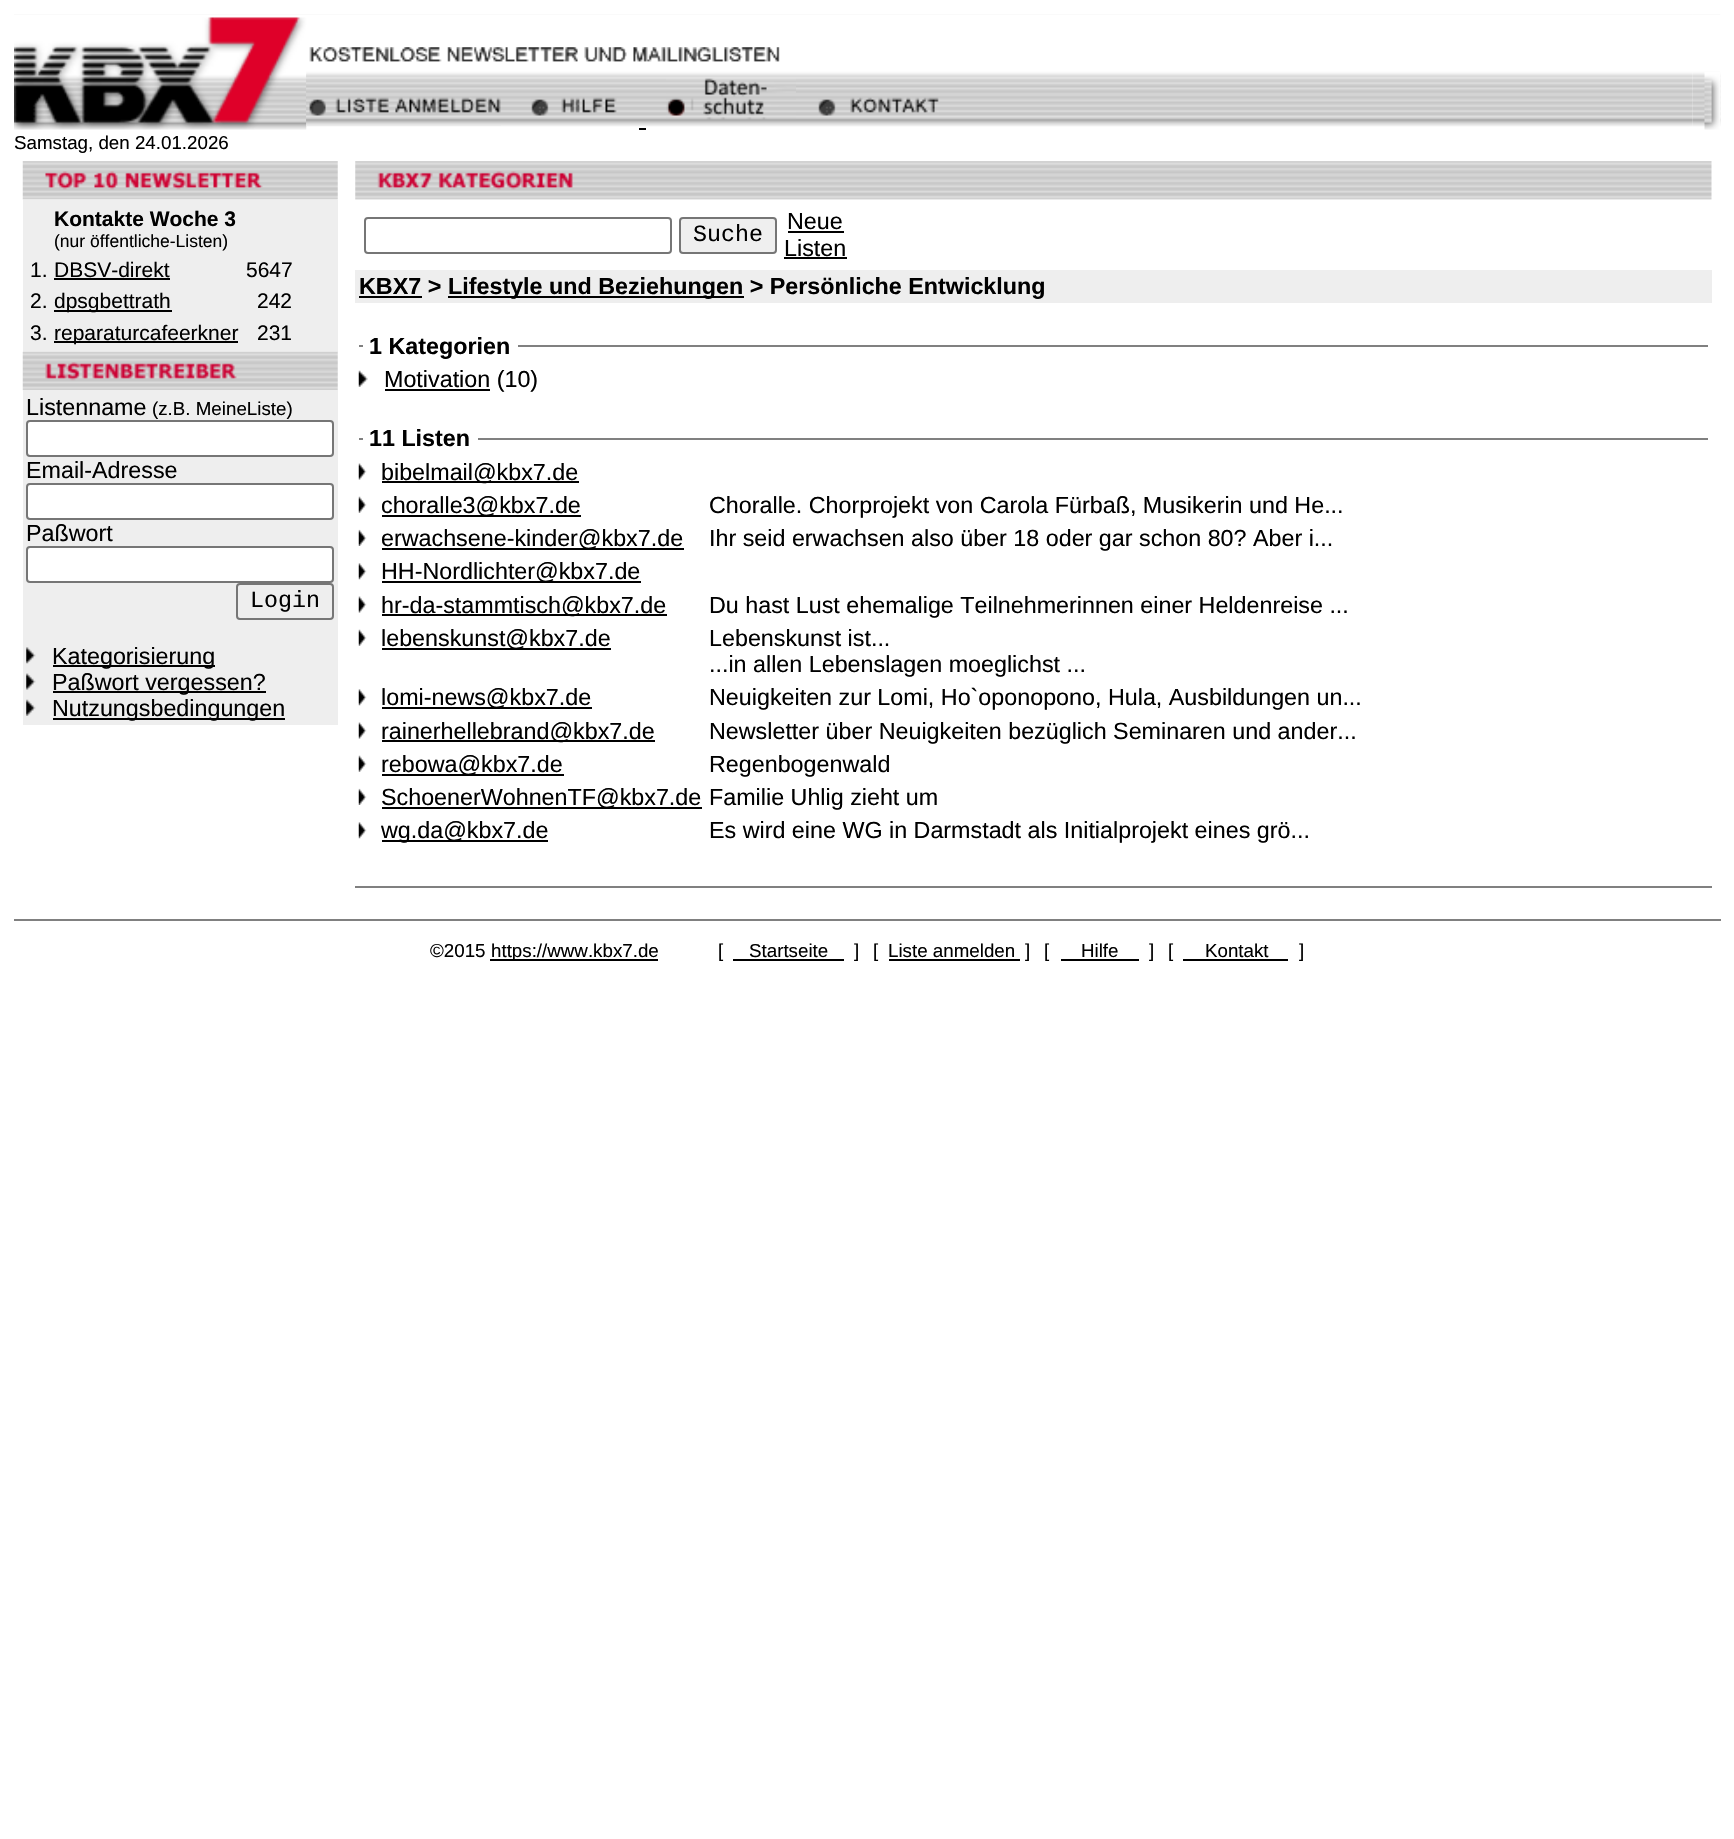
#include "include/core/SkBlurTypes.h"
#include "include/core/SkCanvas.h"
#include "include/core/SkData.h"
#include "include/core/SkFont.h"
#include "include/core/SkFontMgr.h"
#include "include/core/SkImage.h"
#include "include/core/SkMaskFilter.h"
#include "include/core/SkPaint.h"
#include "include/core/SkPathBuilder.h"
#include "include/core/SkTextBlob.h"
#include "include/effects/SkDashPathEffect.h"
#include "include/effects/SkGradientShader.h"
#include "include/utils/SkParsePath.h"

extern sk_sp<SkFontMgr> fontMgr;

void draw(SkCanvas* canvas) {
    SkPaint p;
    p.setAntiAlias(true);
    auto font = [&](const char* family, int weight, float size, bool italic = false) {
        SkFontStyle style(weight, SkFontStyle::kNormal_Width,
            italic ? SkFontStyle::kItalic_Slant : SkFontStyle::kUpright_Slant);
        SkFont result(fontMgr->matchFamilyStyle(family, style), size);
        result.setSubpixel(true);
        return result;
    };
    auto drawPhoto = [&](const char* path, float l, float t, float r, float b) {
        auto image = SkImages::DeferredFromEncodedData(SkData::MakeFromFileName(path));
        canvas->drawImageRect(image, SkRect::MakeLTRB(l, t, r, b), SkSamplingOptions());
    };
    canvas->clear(0xFFFFFFFF);
    drawPhoto("media/1.png", 14, 14, 1693, 127);
    drawPhoto("media/2.png", 14, 17, 307, 130);
    drawPhoto("media/3.png", 309, 47, 780, 62);
    drawPhoto("media/4.png", 306, 74, 501, 126);
    drawPhoto("media/5.png", 531, 97, 617, 116);
    drawPhoto("media/6.png", 666, 78, 796, 120);
    drawPhoto("media/7.png", 818, 97, 939, 116);
    p.setColor(0xFF000000);
    canvas->drawRect(SkRect::MakeLTRB(639, 128, 646, 130), p);
    drawPhoto("media/8.png", 1692, 14, 1721, 127);
    drawPhoto("media/9.png", 1704, 72, 1721, 130);
    auto font1 = font("Liberation Sans", 400, 18.75f);
    canvas->drawString("Samstag, den 24.01.2026", 14, 149, font1, p);
    drawPhoto("media/10.png", 22, 161, 338, 200);
    drawPhoto("media/11.png", 45, 171, 263, 190);
    p.setColor(0xFFEEEEEE);
    canvas->drawRect(SkRect::MakeLTRB(23, 200, 338, 352), p);
    auto font2 = font("Liberation Sans", 700, 21);
    p.setColor(0xFF000000);
    canvas->drawString("Kontakte Woche 3", 54, 226, font2, p);
    auto font3 = font("Liberation Sans", 400, 17.5f);
    canvas->drawString("(nur öffentliche-Listen)", 54, 247, font3, p);
    auto font4 = font("Liberation Sans", 400, 21);
    canvas->drawString("1.", 30, 277, font4, p);
    canvas->drawString("DBSV-direkt", 54, 277, font4, p);
    canvas->drawRect(SkRect::MakeLTRB(54, 278, 170, 280), p);
    canvas->drawString("5647", 246, 277, font4, p);
    canvas->drawString("2.", 30, 308, font4, p);
    canvas->drawRect(SkRect::MakeLTRB(54, 310, 172, 312), p);
    {
        const struct { const char* s; float x, y; } items[] = {
            {"dpsgbettrath", 54, 308},
            {"242", 257, 308},
            {"3.", 30, 340},
        };
        for (auto [s, x, y] : items) {
            canvas->drawString(s, x, y, font4, p);
        }
    }
    canvas->drawRect(SkRect::MakeLTRB(54, 341, 238, 343), p);
    canvas->drawString("reparaturcafeerkner", 54, 340, font4, p);
    canvas->drawString("231", 257, 340, font4, p);
    drawPhoto("media/12.png", 22, 351, 338, 391);
    drawPhoto("media/13.png", 45, 362, 237, 381);
    p.setColor(0xFFEEEEEE);
    canvas->drawRect(SkRect::MakeLTRB(23, 390, 338, 725), p);
    auto font5 = font("Liberation Sans", 400, 23.3f);
    p.setColor(0xFF000000);
    canvas->drawString("Listenname", 26, 415, font5, p);
    canvas->drawString("(z.B. MeineListe)", 152, 415, font1, p);
    p.setColor(0xFFFFFFFF);
    canvas->drawRoundRect(SkRect::MakeLTRB(27, 421, 333, 456), 3, 3, p);
    p.setStyle(SkPaint::kStroke_Style);
    p.setStrokeWidth(2);
    p.setColor(0xFF767676);
    canvas->drawRoundRect(SkRect::MakeLTRB(27, 421, 333, 456), 3, 3, p);
    p.setStyle(SkPaint::kFill_Style);
    p.setColor(0xFF000000);
    canvas->drawString("Email-Adresse", 26, 478, font5, p);
    p.setColor(0xFFFFFFFF);
    canvas->drawRoundRect(SkRect::MakeLTRB(27, 484, 333, 519), 3, 3, p);
    p.setStyle(SkPaint::kStroke_Style);
    p.setColor(0xFF767676);
    canvas->drawRoundRect(SkRect::MakeLTRB(27, 484, 333, 519), 3, 3, p);
    p.setStyle(SkPaint::kFill_Style);
    p.setColor(0xFF000000);
    canvas->drawString("Paßwort", 26, 541, font5, p);
    p.setColor(0xFFFFFFFF);
    canvas->drawRoundRect(SkRect::MakeLTRB(27, 547, 333, 582), 3, 3, p);
    p.setStyle(SkPaint::kStroke_Style);
    p.setColor(0xFF767676);
    canvas->drawRoundRect(SkRect::MakeLTRB(27, 547, 333, 582), 3, 3, p);
    canvas->drawRoundRect(SkRect::MakeLTRB(237, 584, 333, 619), 3, 3, p);
    auto font6 = font("Liberation Mono", 400, 23.3f);
    p.setStyle(SkPaint::kFill_Style);
    p.setColor(0xFF000000);
    canvas->drawString("Login", 250, 607, font6, p);
    drawPhoto("media/14.png", 26, 647, 36, 664);
    canvas->drawRect(SkRect::MakeLTRB(53, 665, 215, 667), p);
    canvas->drawString("Kategorisierung", 52, 664, font5, p);
    drawPhoto("media/15.png", 26, 673, 36, 690);
    canvas->drawRect(SkRect::MakeLTRB(53, 691, 266, 693), p);
    canvas->drawString("Paßwort vergessen?", 52, 690, font5, p);
    drawPhoto("media/16.png", 26, 699, 36, 716);
    canvas->drawRect(SkRect::MakeLTRB(53, 718, 285, 720), p);
    canvas->drawString("Nutzungsbedingungen", 52, 716, font5, p);
    drawPhoto("media/17.png", 355, 161, 1712, 200);
    drawPhoto("media/18.png", 377, 171, 573, 190);
    p.setStyle(SkPaint::kStroke_Style);
    p.setColor(0xFF767676);
    canvas->drawRoundRect(SkRect::MakeLTRB(365, 218, 671, 253), 3, 3, p);
    p.setStyle(SkPaint::kFill_Style);
    p.setColor(0xFFEFEFEF);
    canvas->drawRoundRect(SkRect::MakeLTRB(680, 218, 776, 253), 3, 3, p);
    p.setStyle(SkPaint::kStroke_Style);
    p.setColor(0xFF767676);
    canvas->drawRoundRect(SkRect::MakeLTRB(680, 218, 776, 253), 3, 3, p);
    p.setStyle(SkPaint::kFill_Style);
    p.setColor(0xFF000000);
    canvas->drawString("Suche", 693, 241, font6, p);
    canvas->drawString("Neue", 787, 229, font5, p);
    canvas->drawRect(SkRect::MakeLTRB(788, 231, 844, 233), p);
    canvas->drawString("Listen", 784, 256, font5, p);
    canvas->drawRect(SkRect::MakeLTRB(784, 257, 847, 259), p);
    p.setColor(0xFFEEEEEE);
    canvas->drawRect(SkRect::MakeLTRB(355, 270, 1712, 303), p);
    auto font7 = font("Liberation Sans", 700, 23.3f);
    p.setColor(0xFF000000);
    canvas->drawString("KBX7 >", 359, 294, font7, p);
    canvas->drawRect(SkRect::MakeLTRB(359, 296, 422, 298), p);
    canvas->drawRect(SkRect::MakeLTRB(448, 296, 744, 298), p);
    canvas->drawString("Lifestyle und Beziehungen > Persönliche Entwicklung", 448, 294, font7, p);
    p.setColor(0xFF808080);
    canvas->drawRect(SkRect::MakeLTRB(359, 345, 363, 347), p);
    p.setColor(0xFF000000);
    canvas->drawString("1 Kategorien", 369, 354, font7, p);
    p.setColor(0xFF808080);
    canvas->drawRect(SkRect::MakeLTRB(518, 345, 1708, 347), p);
    drawPhoto("media/19.png", 358, 370, 368, 387);
    p.setColor(0xFF000000);
    canvas->drawRect(SkRect::MakeLTRB(385, 389, 490, 391), p);
    canvas->drawString("Motivation (10)", 384, 387, font5, p);
    p.setColor(0xFF808080);
    canvas->drawRect(SkRect::MakeLTRB(359, 438, 363, 440), p);
    p.setColor(0xFF000000);
    canvas->drawString("11 Listen", 369, 446, font7, p);
    p.setColor(0xFF808080);
    canvas->drawRect(SkRect::MakeLTRB(478, 438, 1708, 440), p);
    drawPhoto("media/20.png", 358, 463, 367, 480);
    p.setColor(0xFF000000);
    canvas->drawRect(SkRect::MakeLTRB(382, 481, 579, 483), p);
    canvas->drawString("bibelmail@kbx7.de", 381, 480, font5, p);
    drawPhoto("media/21.png", 358, 496, 367, 513);
    canvas->drawRect(SkRect::MakeLTRB(382, 515, 581, 517), p);
    canvas->drawString("choralle3@kbx7.de", 381, 513, font5, p);
    canvas->drawString("Choralle. Chorprojekt von Carola Fürbaß, Musikerin und He...", 709, 513, font5, p);
    drawPhoto("media/22.png", 358, 529, 367, 546);
    canvas->drawRect(SkRect::MakeLTRB(382, 548, 684, 550), p);
    canvas->drawString("erwachsene-kinder@kbx7.de", 381, 546, font5, p);
    canvas->drawString("Ihr seid erwachsen also über 18 oder gar schon 80? Aber i...", 709, 546, font5, p);
    drawPhoto("media/23.png", 358, 563, 367, 580);
    canvas->drawRect(SkRect::MakeLTRB(382, 581, 641, 583), p);
    canvas->drawString("HH-Nordlichter@kbx7.de", 381, 579, font5, p);
    drawPhoto("media/20.png", 358, 596, 367, 613);
    canvas->drawRect(SkRect::MakeLTRB(382, 614, 667, 616), p);
    canvas->drawString("hr-da-stammtisch@kbx7.de", 381, 613, font5, p);
    canvas->drawString("Du hast Lust ehemalige Teilnehmerinnen einer Heldenreise ...", 709, 613, font5, p);
    drawPhoto("media/21.png", 358, 629, 367, 646);
    canvas->drawRect(SkRect::MakeLTRB(382, 648, 611, 650), p);
    {
        const struct { const char* s; float x, y; } items[] = {
            {"lebenskunst@kbx7.de", 381, 646},
            {"Lebenskunst ist...", 709, 646},
            {"...in allen Lebenslagen moeglichst ...", 709, 672},
        };
        for (auto [s, x, y] : items) {
            canvas->drawString(s, x, y, font5, p);
        }
    }
    drawPhoto("media/23.png", 358, 689, 367, 706);
    canvas->drawRect(SkRect::MakeLTRB(382, 707, 592, 709), p);
    canvas->drawString("lomi-news@kbx7.de", 381, 705, font5, p);
    canvas->drawString("Neuigkeiten zur Lomi, Ho`oponopono, Hula, Ausbildungen un...", 709, 705, font5, p);
    drawPhoto("media/20.png", 358, 722, 367, 739);
    canvas->drawRect(SkRect::MakeLTRB(382, 740, 655, 742), p);
    canvas->drawString("rainerhellebrand@kbx7.de", 381, 739, font5, p);
    canvas->drawString("Newsletter über Neuigkeiten bezüglich Seminaren und ander...", 709, 739, font5, p);
    drawPhoto("media/21.png", 358, 755, 367, 772);
    canvas->drawRect(SkRect::MakeLTRB(382, 774, 564, 776), p);
    canvas->drawString("rebowa@kbx7.de", 381, 772, font5, p);
    canvas->drawString("Regenbogenwald", 709, 772, font5, p);
    drawPhoto("media/22.png", 358, 788, 367, 805);
    canvas->drawRect(SkRect::MakeLTRB(382, 807, 702, 809), p);
    canvas->drawString("SchoenerWohnenTF@kbx7.de", 381, 805, font5, p);
    canvas->drawString("Familie Uhlig zieht um", 709, 805, font5, p);
    drawPhoto("media/23.png", 358, 822, 367, 839);
    canvas->drawRect(SkRect::MakeLTRB(382, 840, 548, 842), p);
    canvas->drawString("wg.da@kbx7.de", 381, 838, font5, p);
    canvas->drawString("Es wird eine WG in Darmstadt als Initialprojekt eines grö...", 709, 838, font5, p);
    p.setColor(0xFF808080);
    canvas->drawRect(SkRect::MakeLTRB(355, 886, 1712, 888), p);
    canvas->drawRect(SkRect::MakeLTRB(14, 919, 1721, 921), p);
    p.setColor(0xFF000000);
    canvas->drawString("©2015", 430, 957, font1, p);
    canvas->drawRect(SkRect::MakeLTRB(490, 959, 658, 961), p);
    {
        const struct { const char* s; float x, y; } items[] = {
            {"https://www.kbx7.de", 491, 957},
            {"[", 718, 957},
            {"Startseite", 749, 957},
        };
        for (auto [s, x, y] : items) {
            canvas->drawString(s, x, y, font1, p);
        }
    }
    canvas->drawRect(SkRect::MakeLTRB(733, 959, 844, 961), p);
    {
        const struct { const char* s; float x, y; } items[] = {
            {"]", 854, 957},
            {"[", 873, 957},
            {"Liste anmelden", 888, 957},
        };
        for (auto [s, x, y] : items) {
            canvas->drawString(s, x, y, font1, p);
        }
    }
    canvas->drawRect(SkRect::MakeLTRB(889, 959, 1020, 961), p);
    {
        const struct { const char* s; float x, y; } items[] = {
            {"]", 1025, 957},
            {"[", 1044, 957},
            {"Hilfe", 1081, 957},
        };
        for (auto [s, x, y] : items) {
            canvas->drawString(s, x, y, font1, p);
        }
    }
    canvas->drawRect(SkRect::MakeLTRB(1061, 959, 1139, 961), p);
    {
        const struct { const char* s; float x, y; } items[] = {
            {"]", 1149, 957},
            {"[", 1168, 957},
            {"Kontakt", 1205, 957},
        };
        for (auto [s, x, y] : items) {
            canvas->drawString(s, x, y, font1, p);
        }
    }
    canvas->drawRect(SkRect::MakeLTRB(1183, 959, 1288, 961), p);
    canvas->drawString("]", 1299, 957, font1, p);
}
